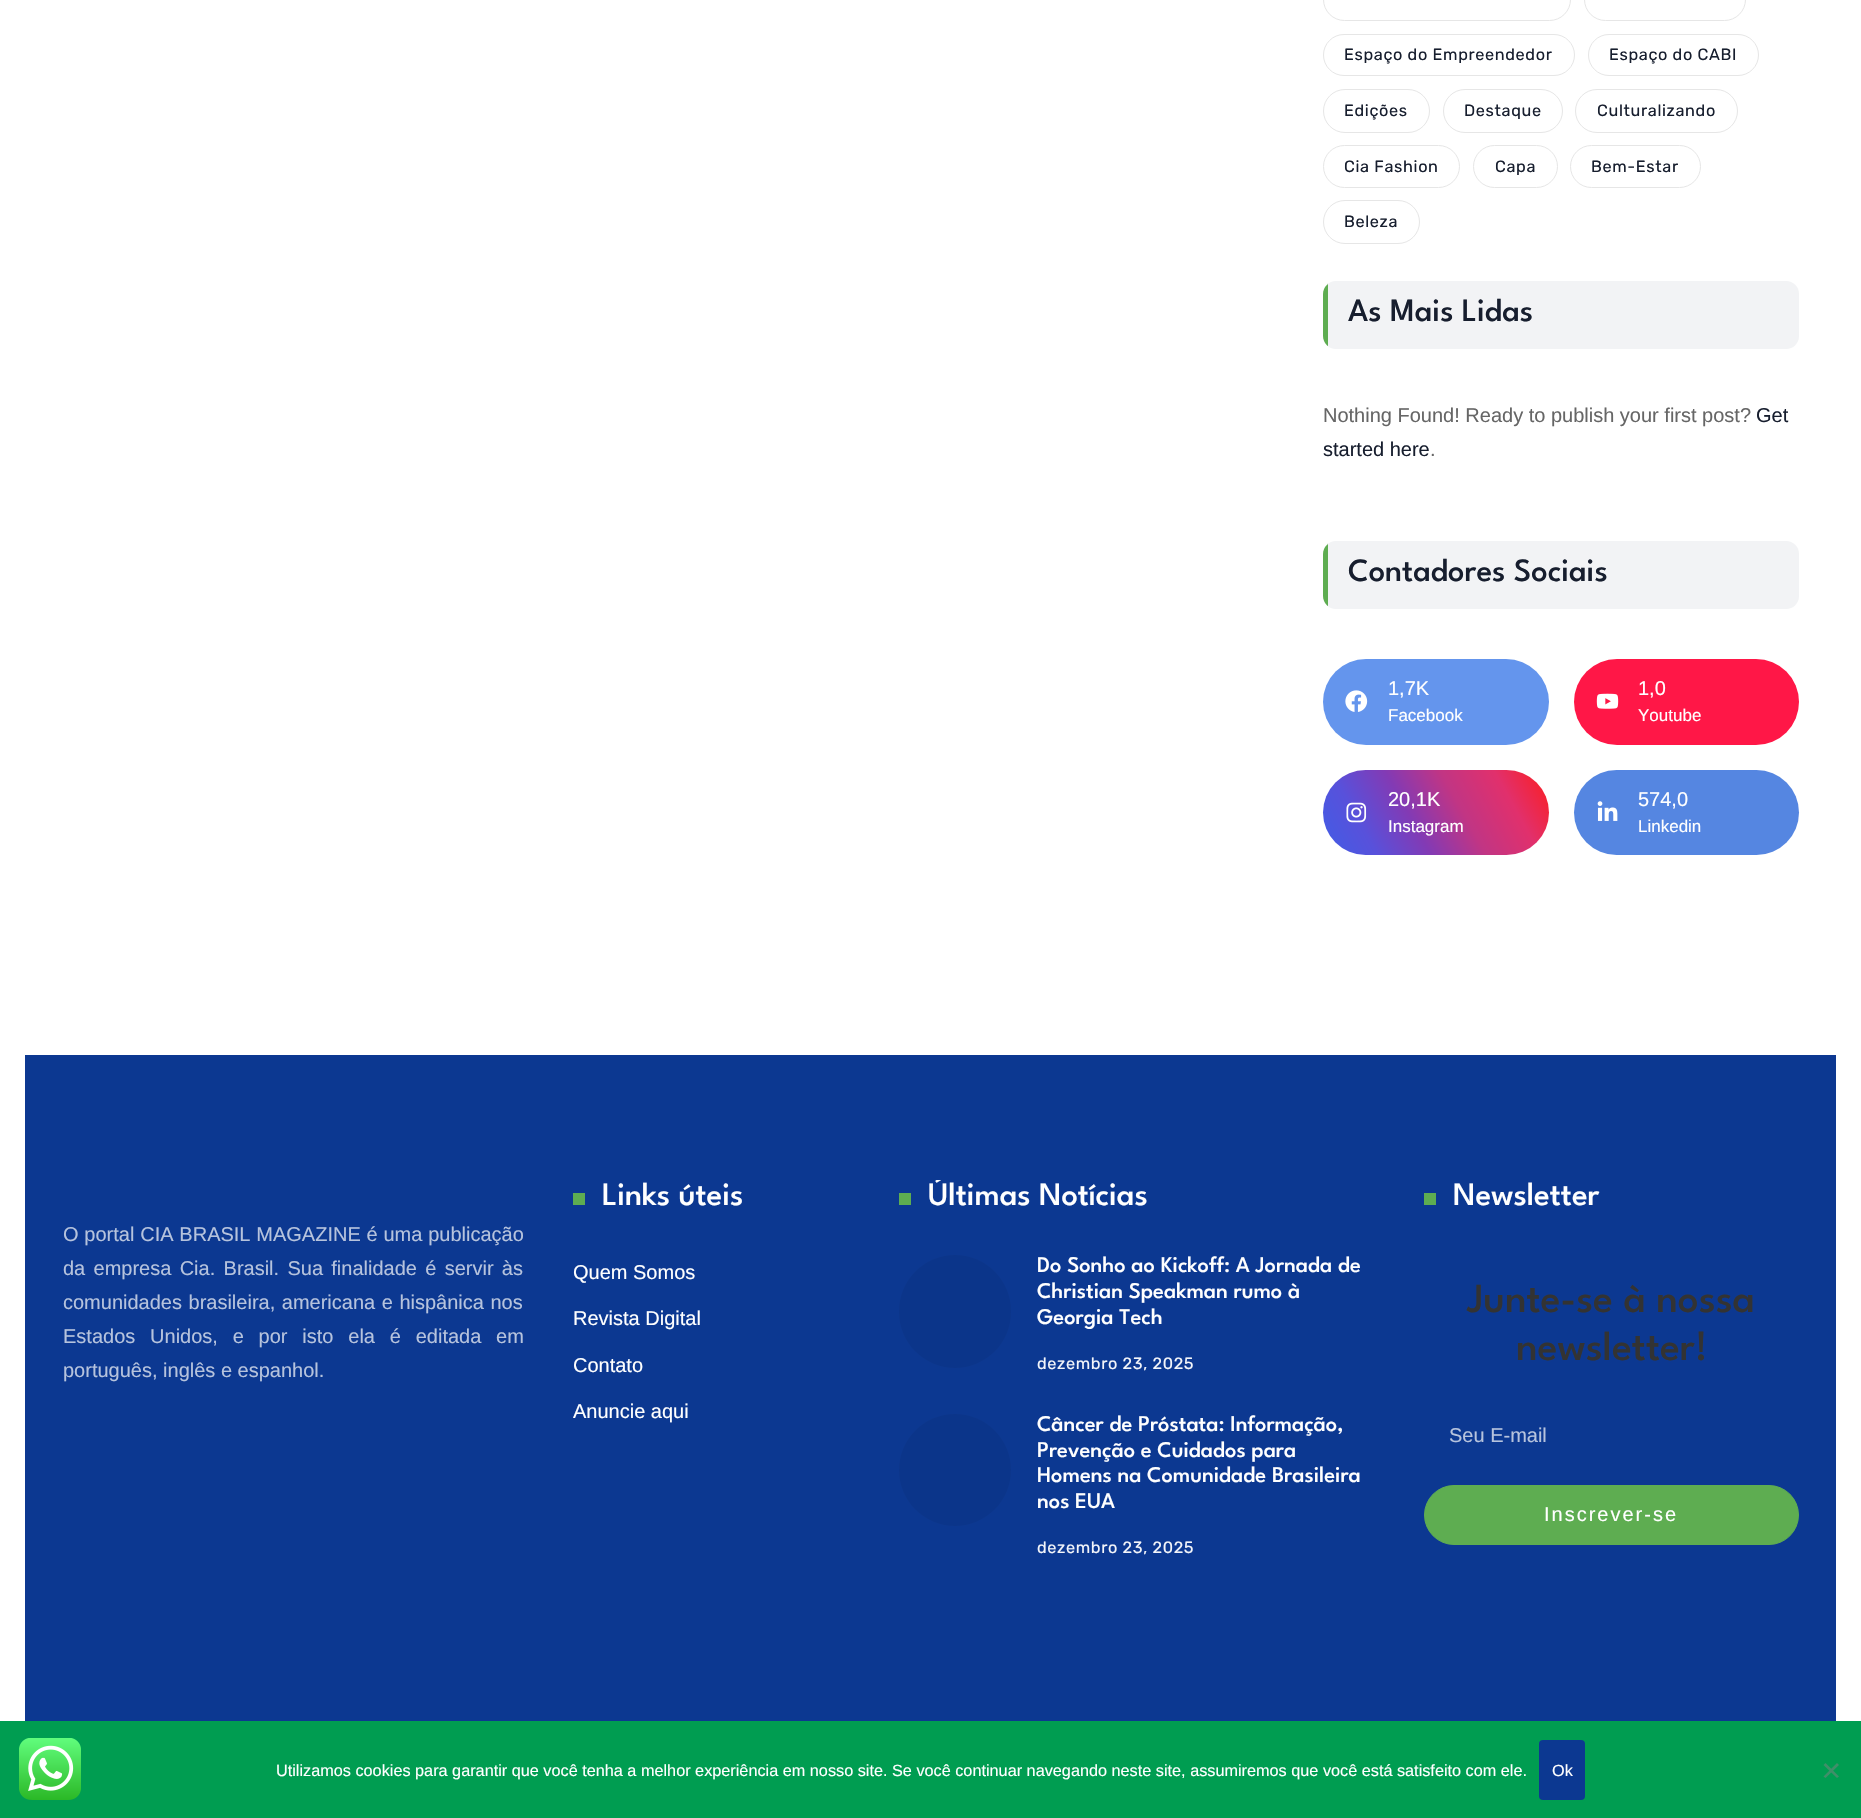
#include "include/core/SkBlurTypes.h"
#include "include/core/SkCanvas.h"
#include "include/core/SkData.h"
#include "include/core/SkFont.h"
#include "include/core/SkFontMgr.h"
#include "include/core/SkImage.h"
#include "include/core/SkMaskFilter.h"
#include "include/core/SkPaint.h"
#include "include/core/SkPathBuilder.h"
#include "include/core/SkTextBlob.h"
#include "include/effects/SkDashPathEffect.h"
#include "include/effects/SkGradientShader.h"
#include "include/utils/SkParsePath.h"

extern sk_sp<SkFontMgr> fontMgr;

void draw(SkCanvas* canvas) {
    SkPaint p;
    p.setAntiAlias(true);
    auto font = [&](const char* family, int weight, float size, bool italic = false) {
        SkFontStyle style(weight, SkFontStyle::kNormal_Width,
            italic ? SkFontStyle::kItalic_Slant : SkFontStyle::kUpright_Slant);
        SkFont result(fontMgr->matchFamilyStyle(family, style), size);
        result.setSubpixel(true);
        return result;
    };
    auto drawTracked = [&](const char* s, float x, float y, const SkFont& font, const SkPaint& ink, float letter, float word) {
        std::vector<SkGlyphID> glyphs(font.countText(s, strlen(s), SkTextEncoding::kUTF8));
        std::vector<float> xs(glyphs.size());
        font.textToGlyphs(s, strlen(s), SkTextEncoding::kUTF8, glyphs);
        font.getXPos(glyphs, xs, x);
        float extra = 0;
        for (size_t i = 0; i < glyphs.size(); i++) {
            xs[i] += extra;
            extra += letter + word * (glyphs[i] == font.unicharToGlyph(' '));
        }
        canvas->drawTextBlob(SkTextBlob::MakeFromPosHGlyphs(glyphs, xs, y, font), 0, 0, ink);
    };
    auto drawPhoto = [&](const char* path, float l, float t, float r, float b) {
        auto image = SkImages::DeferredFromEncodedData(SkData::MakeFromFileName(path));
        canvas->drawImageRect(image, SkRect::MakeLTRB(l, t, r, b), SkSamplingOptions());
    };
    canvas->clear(0xFFFFFFFF);
    p.setStyle(SkPaint::kStroke_Style);
    p.setStrokeWidth(1);
    p.setColor(0xFFE6E6E6);
    canvas->drawRoundRect(SkRect::MakeLTRB(1323.5f, -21.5f, 1570.5f, 20.5f), 21, 21, p);
    canvas->drawRoundRect(SkRect::MakeLTRB(1584.5f, -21.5f, 1745.5f, 20.5f), 21, 21, p);
    canvas->drawRoundRect(SkRect::MakeLTRB(1323.5f, 34.5f, 1574.5f, 75.5f), 20.5f, 20.5f, p);
    auto font1 = font("Rubik", 300, 16.25f);
    p.setStyle(SkPaint::kFill_Style);
    p.setColor(0xFF171E2E);
    drawTracked("Espaço do Empreendedor", 1344, 60, font1, p, 0.65f, 0);
    p.setStyle(SkPaint::kStroke_Style);
    p.setColor(0xFFE6E6E6);
    canvas->drawRoundRect(SkRect::MakeLTRB(1588.5f, 34.5f, 1758.5f, 75.5f), 20.5f, 20.5f, p);
    p.setStyle(SkPaint::kFill_Style);
    p.setColor(0xFF171E2E);
    drawTracked("Espaço do CABI", 1609, 60, font1, p, 0.65f, 0);
    p.setStyle(SkPaint::kStroke_Style);
    p.setColor(0xFFE6E6E6);
    canvas->drawRoundRect(SkRect::MakeLTRB(1323.5f, 89.5f, 1429.5f, 132.5f), 21.5f, 21.5f, p);
    p.setStyle(SkPaint::kFill_Style);
    p.setColor(0xFF171E2E);
    drawTracked("Edições", 1344, 116, font1, p, 0.65f, 0);
    p.setStyle(SkPaint::kStroke_Style);
    p.setColor(0xFFE6E6E6);
    canvas->drawRoundRect(SkRect::MakeLTRB(1443.5f, 89.5f, 1562.5f, 132.5f), 21.5f, 21.5f, p);
    p.setStyle(SkPaint::kFill_Style);
    p.setColor(0xFF171E2E);
    drawTracked("Destaque", 1464, 116, font1, p, 0.65f, 0);
    p.setStyle(SkPaint::kStroke_Style);
    p.setColor(0xFFE6E6E6);
    canvas->drawRoundRect(SkRect::MakeLTRB(1575.5f, 89.5f, 1737.5f, 132.5f), 21.5f, 21.5f, p);
    p.setStyle(SkPaint::kFill_Style);
    p.setColor(0xFF171E2E);
    drawTracked("Culturalizando", 1597, 116, font1, p, 0.65f, 0);
    p.setStyle(SkPaint::kStroke_Style);
    p.setColor(0xFFE6E6E6);
    canvas->drawRoundRect(SkRect::MakeLTRB(1323.5f, 145.5f, 1459.5f, 187.5f), 21, 21, p);
    p.setStyle(SkPaint::kFill_Style);
    p.setColor(0xFF171E2E);
    drawTracked("Cia Fashion", 1344, 172, font1, p, 0.65f, 0);
    p.setStyle(SkPaint::kStroke_Style);
    p.setColor(0xFFE6E6E6);
    canvas->drawRoundRect(SkRect::MakeLTRB(1473.5f, 145.5f, 1557.5f, 187.5f), 21, 21, p);
    p.setStyle(SkPaint::kFill_Style);
    p.setColor(0xFF171E2E);
    drawTracked("Capa", 1495, 172, font1, p, 0.65f, 0);
    p.setStyle(SkPaint::kStroke_Style);
    p.setColor(0xFFE6E6E6);
    canvas->drawRoundRect(SkRect::MakeLTRB(1570.5f, 145.5f, 1700.5f, 187.5f), 21, 21, p);
    p.setStyle(SkPaint::kFill_Style);
    p.setColor(0xFF171E2E);
    drawTracked("Bem-Estar", 1591, 172, font1, p, 0.65f, 0);
    p.setStyle(SkPaint::kStroke_Style);
    p.setColor(0xFFE6E6E6);
    canvas->drawRoundRect(SkRect::MakeLTRB(1323.5f, 200.5f, 1419.5f, 243.5f), 21.5f, 21.5f, p);
    p.setStyle(SkPaint::kFill_Style);
    p.setColor(0xFF171E2E);
    drawTracked("Beleza", 1344, 227, font1, p, 0.65f, 0);
    p.setColor(0xFFF2F3F5);
    canvas->drawRoundRect(SkRect::MakeLTRB(1323, 281, 1799, 349), 13, 13, p);
    canvas->save();
    canvas->clipPath(SkPathBuilder().moveTo(1336, 281).lineTo(1786, 281).cubicTo(1793, 281, 1799, 287, 1799, 294).lineTo(1799, 336).cubicTo(1799, 343, 1793, 349, 1786, 349).lineTo(1336, 349).cubicTo(1329, 349, 1323, 343, 1323, 336).lineTo(1323, 294).cubicTo(1323, 287, 1329, 281, 1336, 281).close().detach(), true);
    p.setColor(0xFF5EAD51);
    canvas->drawRect(SkRect::MakeLTRB(1323, 281, 1328, 349), p);
    canvas->restore();
    auto font2 = font("League Spartan", 100, 32.5f);
    p.setColor(0xFF171E2E);
    canvas->drawString("As Mais Lidas", 1348, 321, font2, p);
    auto font3 = font("Liberation Sans", 400, 20);
    p.setColor(0xFF666666);
    canvas->drawString("Nothing Found! Ready to publish your first post?", 1323, 422, font3, p);
    p.setColor(0xFF171E2E);
    canvas->drawString("Get", 1756, 422, font3, p);
    canvas->drawString("started here", 1323, 456, font3, p);
    p.setColor(0xFF666666);
    canvas->drawString(".", 1430, 456, font3, p);
    p.setColor(0xFFF2F3F5);
    canvas->drawRoundRect(SkRect::MakeLTRB(1323, 541, 1799, 609), 13, 13, p);
    canvas->save();
    canvas->clipPath(SkPathBuilder().moveTo(1336, 541).lineTo(1786, 541).cubicTo(1793, 541, 1799, 547, 1799, 554).lineTo(1799, 596).cubicTo(1799, 603, 1793, 609, 1786, 609).lineTo(1336, 609).cubicTo(1329, 609, 1323, 603, 1323, 596).lineTo(1323, 554).cubicTo(1323, 547, 1329, 541, 1336, 541).close().detach(), true);
    p.setColor(0xFF5EAD51);
    canvas->drawRect(SkRect::MakeLTRB(1323, 541, 1328, 609), p);
    canvas->restore();
    p.setColor(0xFF171E2E);
    canvas->drawString("Contadores Sociais", 1348, 581, font2, p);
    p.setColor(0xFF6495ED);
    canvas->drawRoundRect(SkRect::MakeLTRB(1323, 659, 1549, 745), 43, 43, p);
    drawPhoto("media/1.png", 1345, 690, 1368, 712);
    p.setColor(0xFFFFFFFF);
    canvas->drawString("1,7K", 1388, 695, font3, p);
    auto font4 = font("Liberation Sans", 400, 17);
    canvas->drawString("Facebook", 1388, 721, font4, p);
    p.setColor(0xFFFF1747);
    canvas->drawRoundRect(SkRect::MakeLTRB(1574, 659, 1799, 745), 43, 43, p);
    drawPhoto("media/2.png", 1596, 693, 1619, 709);
    p.setColor(0xFFFFFFFF);
    canvas->drawString("1,0", 1638, 695, font3, p);
    canvas->drawString("Youtube", 1638, 721, font4, p);
    {
        const SkColor colors[] = {0xFF405DE6, 0xFF5851DB, 0xFF833AB4, 0xFFC13584, 0xFFE1306C, 0xFFFD1D1D};
        const float stops[] = {0, 0.2f, 0.4f, 0.6f, 0.8f, 1};
        const SkPoint ends[] = {{1331, 870}, {1540, 755}};
        p.setShader(SkGradientShader::MakeLinear(ends, colors, stops, 6, SkTileMode::kClamp));
        p.setAlpha(255);
    }
    canvas->drawRoundRect(SkRect::MakeLTRB(1323, 770, 1549, 855), 42.5f, 42.5f, p);
    drawPhoto("media/3.png", 1346, 802, 1367, 823);
    p.setShader(nullptr);
    p.setColor(0xFFFFFFFF);
    canvas->drawString("20,1K", 1388, 806, font3, p);
    canvas->drawString("Instagram", 1388, 832, font4, p);
    p.setColor(0xFF5586E1);
    canvas->drawRoundRect(SkRect::MakeLTRB(1574, 770, 1799, 855), 42.5f, 42.5f, p);
    drawPhoto("media/4.png", 1597, 801, 1618, 821);
    p.setColor(0xFFFFFFFF);
    canvas->drawString("574,0", 1638, 806, font3, p);
    canvas->drawString("Linkedin", 1638, 832, font4, p);
    p.setColor(0xFF0C3891);
    canvas->drawRect(SkRect::MakeLTRB(25, 1055, 1836, 1721), p);
    p.setColor(0xFFB6C3DD);
    drawTracked("O portal CIA BRASIL MAGAZINE é uma publicação", 63, 1241, font3, p, 0, 0.25f);
    drawTracked("da empresa Cia. Brasil. Sua finalidade é servir às", 63, 1275, font3, p, 0, 2.75f);
    drawTracked("comunidades brasileira, americana e hispânica nos", 63, 1309, font3, p, 0, 1);
    drawTracked("Estados Unidos, e por isto ela é editada em", 63, 1343, font3, p, 0, 9.25f);
    canvas->drawString("português, inglês e espanhol.", 63, 1377, font3, p);
    p.setColor(0xFF5EAD51);
    canvas->drawRect(SkRect::MakeLTRB(573, 1193, 585, 1205), p);
    p.setColor(0xFFFFFFFF);
    canvas->drawString("Links úteis", 602, 1205, font2, p);
    {
        const struct { const char* s; float x, y; } items[] = {
            {"Quem Somos", 573, 1279},
            {"Revista Digital", 573, 1325},
            {"Contato", 573, 1372},
            {"Anuncie aqui", 573, 1418},
        };
        for (auto [s, x, y] : items) {
            canvas->drawString(s, x, y, font3, p);
        }
    }
    p.setColor(0xFF5EAD51);
    canvas->drawRect(SkRect::MakeLTRB(899, 1193, 911, 1205), p);
    canvas->save();
    canvas->clipRect(SkRect::MakeLTRB(899, 1180, 1374, 1218));
    p.setColor(0xFFFFFFFF);
    canvas->drawString("Últimas Notícias", 928, 1205, font2, p);
    canvas->restore();
    p.setColor(0xFF0B358A);
    canvas->drawRoundRect(SkRect::MakeLTRB(899, 1255, 1011, 1368), 56, 56, p);
    auto font5 = font("League Spartan", 100, 22.5f);
    p.setColor(0xFFFFFFFF);
    {
        const struct { const char* s; float x, y; } items[] = {
            {"Do Sonho ao Kickoff: A Jornada de", 1037, 1272},
            {"Christian Speakman rumo à", 1037, 1298},
            {"Georgia Tech", 1037, 1324},
        };
        for (auto [s, x, y] : items) {
            canvas->drawString(s, x, y, font5, p);
        }
    }
    p.setColor(0xFFF3F5FA);
    drawTracked("dezembro 23, 2025", 1037, 1369, font1, p, 0.65f, 0);
    p.setColor(0xFF0B358A);
    canvas->drawCircle(955, 1470, 56, p);
    p.setColor(0xFFFFFFFF);
    {
        const struct { const char* s; float x, y; } items[] = {
            {"Câncer de Próstata: Informação,", 1037, 1431},
            {"Prevenção e Cuidados para", 1037, 1457},
            {"Homens na Comunidade Brasileira", 1037, 1482},
            {"nos EUA", 1037, 1508},
        };
        for (auto [s, x, y] : items) {
            canvas->drawString(s, x, y, font5, p);
        }
    }
    p.setColor(0xFFF3F5FA);
    drawTracked("dezembro 23, 2025", 1037, 1553, font1, p, 0.65f, 0);
    p.setColor(0xFF5EAD51);
    canvas->drawRect(SkRect::MakeLTRB(1424, 1193, 1436, 1205), p);
    p.setColor(0xFFFFFFFF);
    canvas->drawString("Newsletter", 1453, 1205, font2, p);
    auto font6 = font("League Spartan", 100, 41.25f);
    p.setColor(0xFF333333);
    canvas->drawString("Junte-se à nossa", 1467, 1312, font6, p);
    canvas->drawString("newsletter!", 1516, 1360, font6, p);
    p.setColor(0xFFB6C3DD);
    canvas->drawString("Seu E-mail", 1449, 1442, font3, p);
    p.setColor(0xFF5EAD51);
    canvas->drawRoundRect(SkRect::MakeLTRB(1424.5f, 1485.5f, 1798.5f, 1544.5f), 29.5f, 29.5f, p);
    p.setStyle(SkPaint::kStroke_Style);
    canvas->drawRoundRect(SkRect::MakeLTRB(1424.5f, 1485.5f, 1798.5f, 1544.5f), 29.5f, 29.5f, p);
    p.setStyle(SkPaint::kFill_Style);
    p.setColor(0xFFFFFFFF);
    drawTracked("Inscrever-se", 1544, 1521, font3, p, 2, 0);
    p.setColor(0xFF009D51);
    canvas->drawRect(SkRect::MakeLTRB(0, 1721, 1861, 1818), p);
    drawPhoto("media/5.png", 19, 1738, 81, 1800);
    auto font7 = font("Liberation Sans", 400, 16.25f);
    p.setColor(0xFFFFFFFF);
    canvas->drawString("Utilizamos cookies para garantir que você tenha a melhor experiência em nosso site. Se você continuar navegando neste site, assumiremos que você está satisfeito com ele.", 276, 1776, font7, p);
    p.setColor(0xFF0C3891);
    canvas->drawRoundRect(SkRect::MakeLTRB(1539, 1740, 1585, 1800), 4, 4, p);
    p.setColor(0xFFFFFFFF);
    canvas->drawString("Ok", 1552, 1776, font7, p);
    p.setColor(0xFF408F69);
    canvas->drawPath(SkPathBuilder().moveTo(1837, 1763).lineTo(1839, 1765).lineTo(1825.5f, 1778).lineTo(1823.5f, 1776.5f).close().detach(), p);
    canvas->drawPath(SkPathBuilder().moveTo(1823.5f, 1765).lineTo(1825.5f, 1763).lineTo(1839, 1776.5f).lineTo(1837, 1778).close().detach(), p);
}
